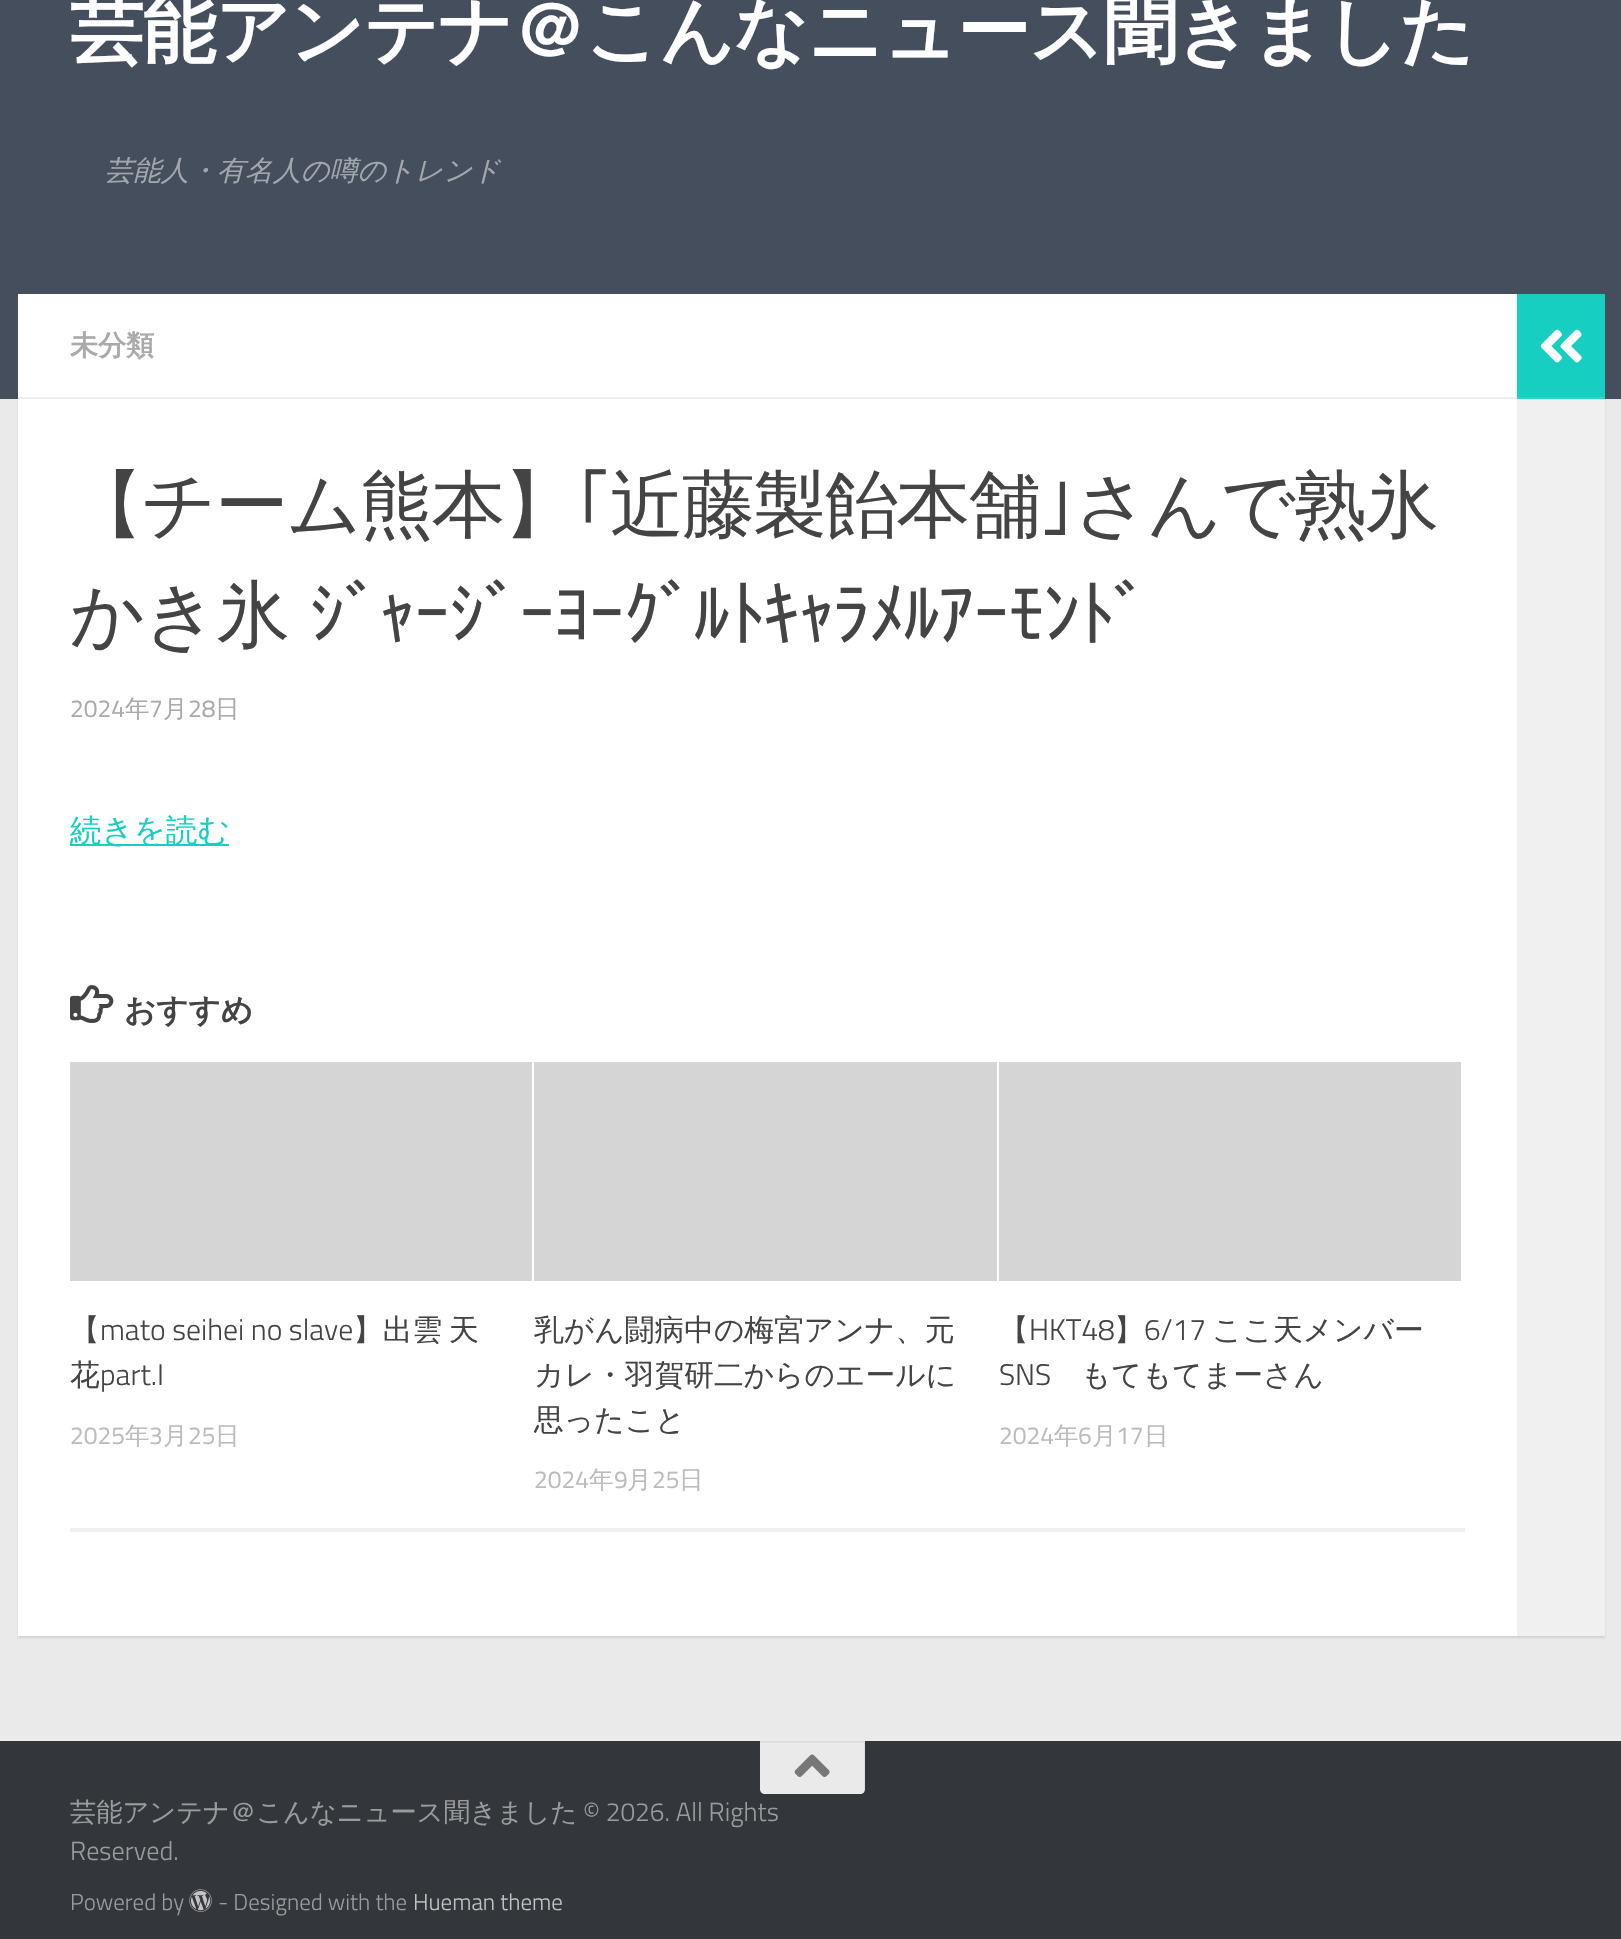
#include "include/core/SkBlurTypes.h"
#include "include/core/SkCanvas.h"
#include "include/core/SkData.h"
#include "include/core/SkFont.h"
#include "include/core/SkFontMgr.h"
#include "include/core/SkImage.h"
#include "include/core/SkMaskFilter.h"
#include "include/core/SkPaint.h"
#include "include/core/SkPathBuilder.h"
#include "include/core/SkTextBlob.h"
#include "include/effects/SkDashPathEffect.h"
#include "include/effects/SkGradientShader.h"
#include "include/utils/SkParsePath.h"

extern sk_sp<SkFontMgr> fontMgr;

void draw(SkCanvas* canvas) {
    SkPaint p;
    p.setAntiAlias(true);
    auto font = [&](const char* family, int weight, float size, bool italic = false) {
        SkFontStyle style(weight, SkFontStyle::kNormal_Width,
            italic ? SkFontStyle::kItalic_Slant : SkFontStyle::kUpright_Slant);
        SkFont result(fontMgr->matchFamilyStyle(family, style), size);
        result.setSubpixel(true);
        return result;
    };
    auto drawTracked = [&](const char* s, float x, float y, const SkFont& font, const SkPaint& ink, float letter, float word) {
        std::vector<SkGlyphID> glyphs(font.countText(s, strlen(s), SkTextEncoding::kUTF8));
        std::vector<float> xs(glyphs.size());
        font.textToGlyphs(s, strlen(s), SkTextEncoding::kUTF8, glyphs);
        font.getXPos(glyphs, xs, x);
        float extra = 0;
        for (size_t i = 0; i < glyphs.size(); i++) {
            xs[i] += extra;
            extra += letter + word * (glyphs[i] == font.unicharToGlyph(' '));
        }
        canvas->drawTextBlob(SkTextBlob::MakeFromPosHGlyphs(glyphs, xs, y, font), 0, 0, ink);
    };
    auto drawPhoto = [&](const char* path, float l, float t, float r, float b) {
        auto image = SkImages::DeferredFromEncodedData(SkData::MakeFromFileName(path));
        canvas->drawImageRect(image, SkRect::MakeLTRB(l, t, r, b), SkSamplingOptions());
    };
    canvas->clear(0xFFEAEAEA);
    p.setColor(0x1A000000);
    p.setMaskFilter(SkMaskFilter::MakeBlur(kNormal_SkBlurStyle, 1));
    canvas->drawRect(SkRect::MakeLTRB(18, 296, 1605, 1638), p);
    p.setMaskFilter(nullptr);
    p.setColor(0xFF454E5C);
    canvas->drawRect(SkRect::MakeLTRB(0, 0, 1621, 399), p);
    auto font1 = font("WenQuanYi Zen Hei", 700, 73.5f);
    p.setColor(0xFFFFFFFF);
    drawTracked("芸能アンテナ＠こんなニュース聞きました", 70, 56, font1, p, -0.9f, 0);
    auto font2 = font("WenQuanYi Zen Hei", 500, 28, true);
    p.setColor(0xFFA2A7AE);
    canvas->drawString("芸能人・有名人の噂のトレンド", 105, 180, font2, p);
    p.setColor(0xFFFFFFFF);
    canvas->drawRect(SkRect::MakeLTRB(18, 294, 1517, 1636), p);
    p.setColor(0xFFEEEEEE);
    canvas->drawRect(SkRect::MakeLTRB(18, 397, 1517, 399), p);
    auto font3 = font("WenQuanYi Zen Hei", 700, 28);
    p.setColor(0xFFAAAAAA);
    canvas->drawString("未分類", 70, 355, font3, p);
    auto font4 = font("WenQuanYi Zen Hei", 500, 73.4f);
    p.setColor(0xFF444444);
    drawTracked("【チーム熊本】", 70, 530, font4, p, -1.75f, 0);
    auto font5 = font("IPAPGothic", 400, 73.4f);
    drawTracked("｢", 575, 530, font5, p, -1.75f, 0);
    drawTracked("近藤製飴本舗", 610, 530, font4, p, -1.75f, 0);
    drawTracked("｣", 1039, 530, font5, p, -1.75f, 0);
    drawTracked("さんで熟氷", 1074, 530, font4, p, -1.75f, 0);
    drawTracked("かき氷", 70, 640, font4, p, -1.75f, 0);
    drawTracked("ｼﾞｬｰｼﾞｰﾖｰｸﾞﾙﾄｷｬﾗﾒﾙｱｰﾓﾝﾄﾞ", 309, 640, font5, p, -1.75f, 0);
    auto font6 = font("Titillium", 400, 24.5f);
    p.setColor(0xFFAAAAAA);
    canvas->drawString("2024", 70, 717, font6, p);
    auto font7 = font("WenQuanYi Zen Hei", 500, 24.5f);
    canvas->drawString("年", 125, 717, font7, p);
    canvas->drawString("7", 149, 717, font6, p);
    canvas->drawString("月", 163, 717, font7, p);
    canvas->drawString("28", 188, 717, font6, p);
    canvas->drawString("日", 215, 717, font7, p);
    p.setColor(0xFF16CFC1);
    canvas->drawRect(SkRect::MakeLTRB(70, 844, 229, 846), p);
    auto font8 = font("WenQuanYi Zen Hei", 500, 31.5f);
    canvas->drawString("続きを読む", 70, 841, font8, p);
    drawPhoto("media/1.png", 70, 985, 114, 1023);
    auto font9 = font("WenQuanYi Zen Hei", 700, 31.5f);
    p.setColor(0xFF444444);
    canvas->drawString("おすすめ", 124, 1021, font9, p);
    p.setColor(0xFFEEEEEE);
    canvas->drawRect(SkRect::MakeLTRB(70, 1528, 1465, 1532), p);
    p.setColor(0xFFD5D5D5);
    canvas->drawRect(SkRect::MakeLTRB(70, 1062, 532, 1281), p);
    auto font10 = font("WenQuanYi Zen Hei", 500, 29.75f);
    p.setColor(0xFF444444);
    canvas->drawString("【", 70, 1340, font10, p);
    auto font11 = font("Titillium", 300, 29.75f);
    canvas->drawString("mato seihei no slave", 100, 1340, font11, p);
    {
        const struct { const char* s; float x, y; } items[] = {
            {"】出雲", 353, 1340},
            {"天", 449, 1340},
            {"花", 70, 1385},
        };
        for (auto [s, x, y] : items) {
            canvas->drawString(s, x, y, font10, p);
        }
    }
    canvas->drawString("part.I", 100, 1385, font11, p);
    p.setColor(0xFFBBBBBB);
    canvas->drawString("2025", 70, 1444, font6, p);
    canvas->drawString("年", 125, 1444, font7, p);
    canvas->drawString("3", 149, 1444, font6, p);
    canvas->drawString("月", 163, 1444, font7, p);
    canvas->drawString("25", 188, 1444, font6, p);
    canvas->drawString("日", 215, 1444, font7, p);
    p.setColor(0xFFD5D5D5);
    canvas->drawRect(SkRect::MakeLTRB(534, 1062, 997, 1281), p);
    p.setColor(0xFF444444);
    {
        const struct { const char* s; float x, y; } items[] = {
            {"乳がん闘病中の梅宮アンナ、元", 534, 1340},
            {"カレ・羽賀研二からのエールに", 534, 1385},
            {"思ったこと", 534, 1430},
        };
        for (auto [s, x, y] : items) {
            canvas->drawString(s, x, y, font10, p);
        }
    }
    p.setColor(0xFFBBBBBB);
    canvas->drawString("2024", 534, 1488, font6, p);
    canvas->drawString("年", 589, 1488, font7, p);
    canvas->drawString("9", 614, 1488, font6, p);
    canvas->drawString("月", 627, 1488, font7, p);
    canvas->drawString("25", 652, 1488, font6, p);
    canvas->drawString("日", 679, 1488, font7, p);
    p.setColor(0xFFD5D5D5);
    canvas->drawRect(SkRect::MakeLTRB(999, 1062, 1461, 1281), p);
    p.setColor(0xFF444444);
    canvas->drawString("【", 999, 1340, font10, p);
    canvas->drawString("HKT48", 1029, 1340, font11, p);
    canvas->drawString("】", 1114, 1340, font10, p);
    canvas->drawString("6/17", 1144, 1340, font11, p);
    canvas->drawString("ここ天メンバー", 1212, 1340, font10, p);
    canvas->drawString("SNS", 999, 1385, font11, p);
    canvas->drawString("もてもてまーさん", 1081, 1385, font10, p);
    p.setColor(0xFFBBBBBB);
    canvas->drawString("2024", 999, 1444, font6, p);
    canvas->drawString("年", 1054, 1444, font7, p);
    canvas->drawString("6", 1078, 1444, font6, p);
    canvas->drawString("月", 1092, 1444, font7, p);
    canvas->drawString("17", 1116, 1444, font6, p);
    canvas->drawString("日", 1144, 1444, font7, p);
    p.setColor(0xFF16CFC1);
    canvas->drawRect(SkRect::MakeLTRB(1517, 294, 1605, 397), p);
    p.setColor(0xFF2DD4C7);
    canvas->drawRect(SkRect::MakeLTRB(1517, 397, 1605, 399), p);
    drawPhoto("media/2.png", 1540, 329, 1582, 363);
    p.setColor(0xFFF0F0F0);
    canvas->drawRect(SkRect::MakeLTRB(1517, 399, 1605, 1636), p);
    p.setColor(0xFF33363B);
    canvas->drawRect(SkRect::MakeLTRB(0, 1741, 1621, 1939), p);
    p.setColor(0xFFEAEAEA);
    canvas->drawPath(SkPathBuilder().moveTo(760, 1741).lineTo(865, 1741).lineTo(865, 1789).cubicTo(865, 1792, 863, 1794, 860, 1794).lineTo(765, 1794).cubicTo(762, 1794, 760, 1792, 760, 1789).close().detach(), p);
    p.setColor(0x0D000000);
    canvas->drawPath(SkPathBuilder().moveTo(760, 1743).lineTo(864, 1743).lineTo(864, 1790).lineTo(864, 1793).cubicTo(864, 1792, 865, 1790, 865, 1789).lineTo(865, 1741).lineTo(760, 1741).close().detach(), p);
    drawPhoto("media/3.png", 794, 1754, 830, 1777);
    auto font12 = font("WenQuanYi Zen Hei", 500, 26.25f);
    p.setColor(0xFF999B9D);
    canvas->drawString("芸能アンテナ＠こんなニュース聞きました", 70, 1821, font12, p);
    auto font13 = font("Titillium", 300, 26.25f);
    canvas->drawString("© 2026. All Rights", 583, 1821, font13, p);
    canvas->drawString("Reserved.", 70, 1860, font13, p);
    auto font14 = font("Titillium", 300, 23);
    canvas->drawString("Powered by", 70, 1910, font14, p);
    drawPhoto("media/4.png", 189, 1889, 212, 1912);
    canvas->drawString("- Designed with the", 218, 1910, font14, p);
    p.setColor(0xFFC2C3C4);
    canvas->drawString("Hueman theme", 413, 1910, font14, p);
}
